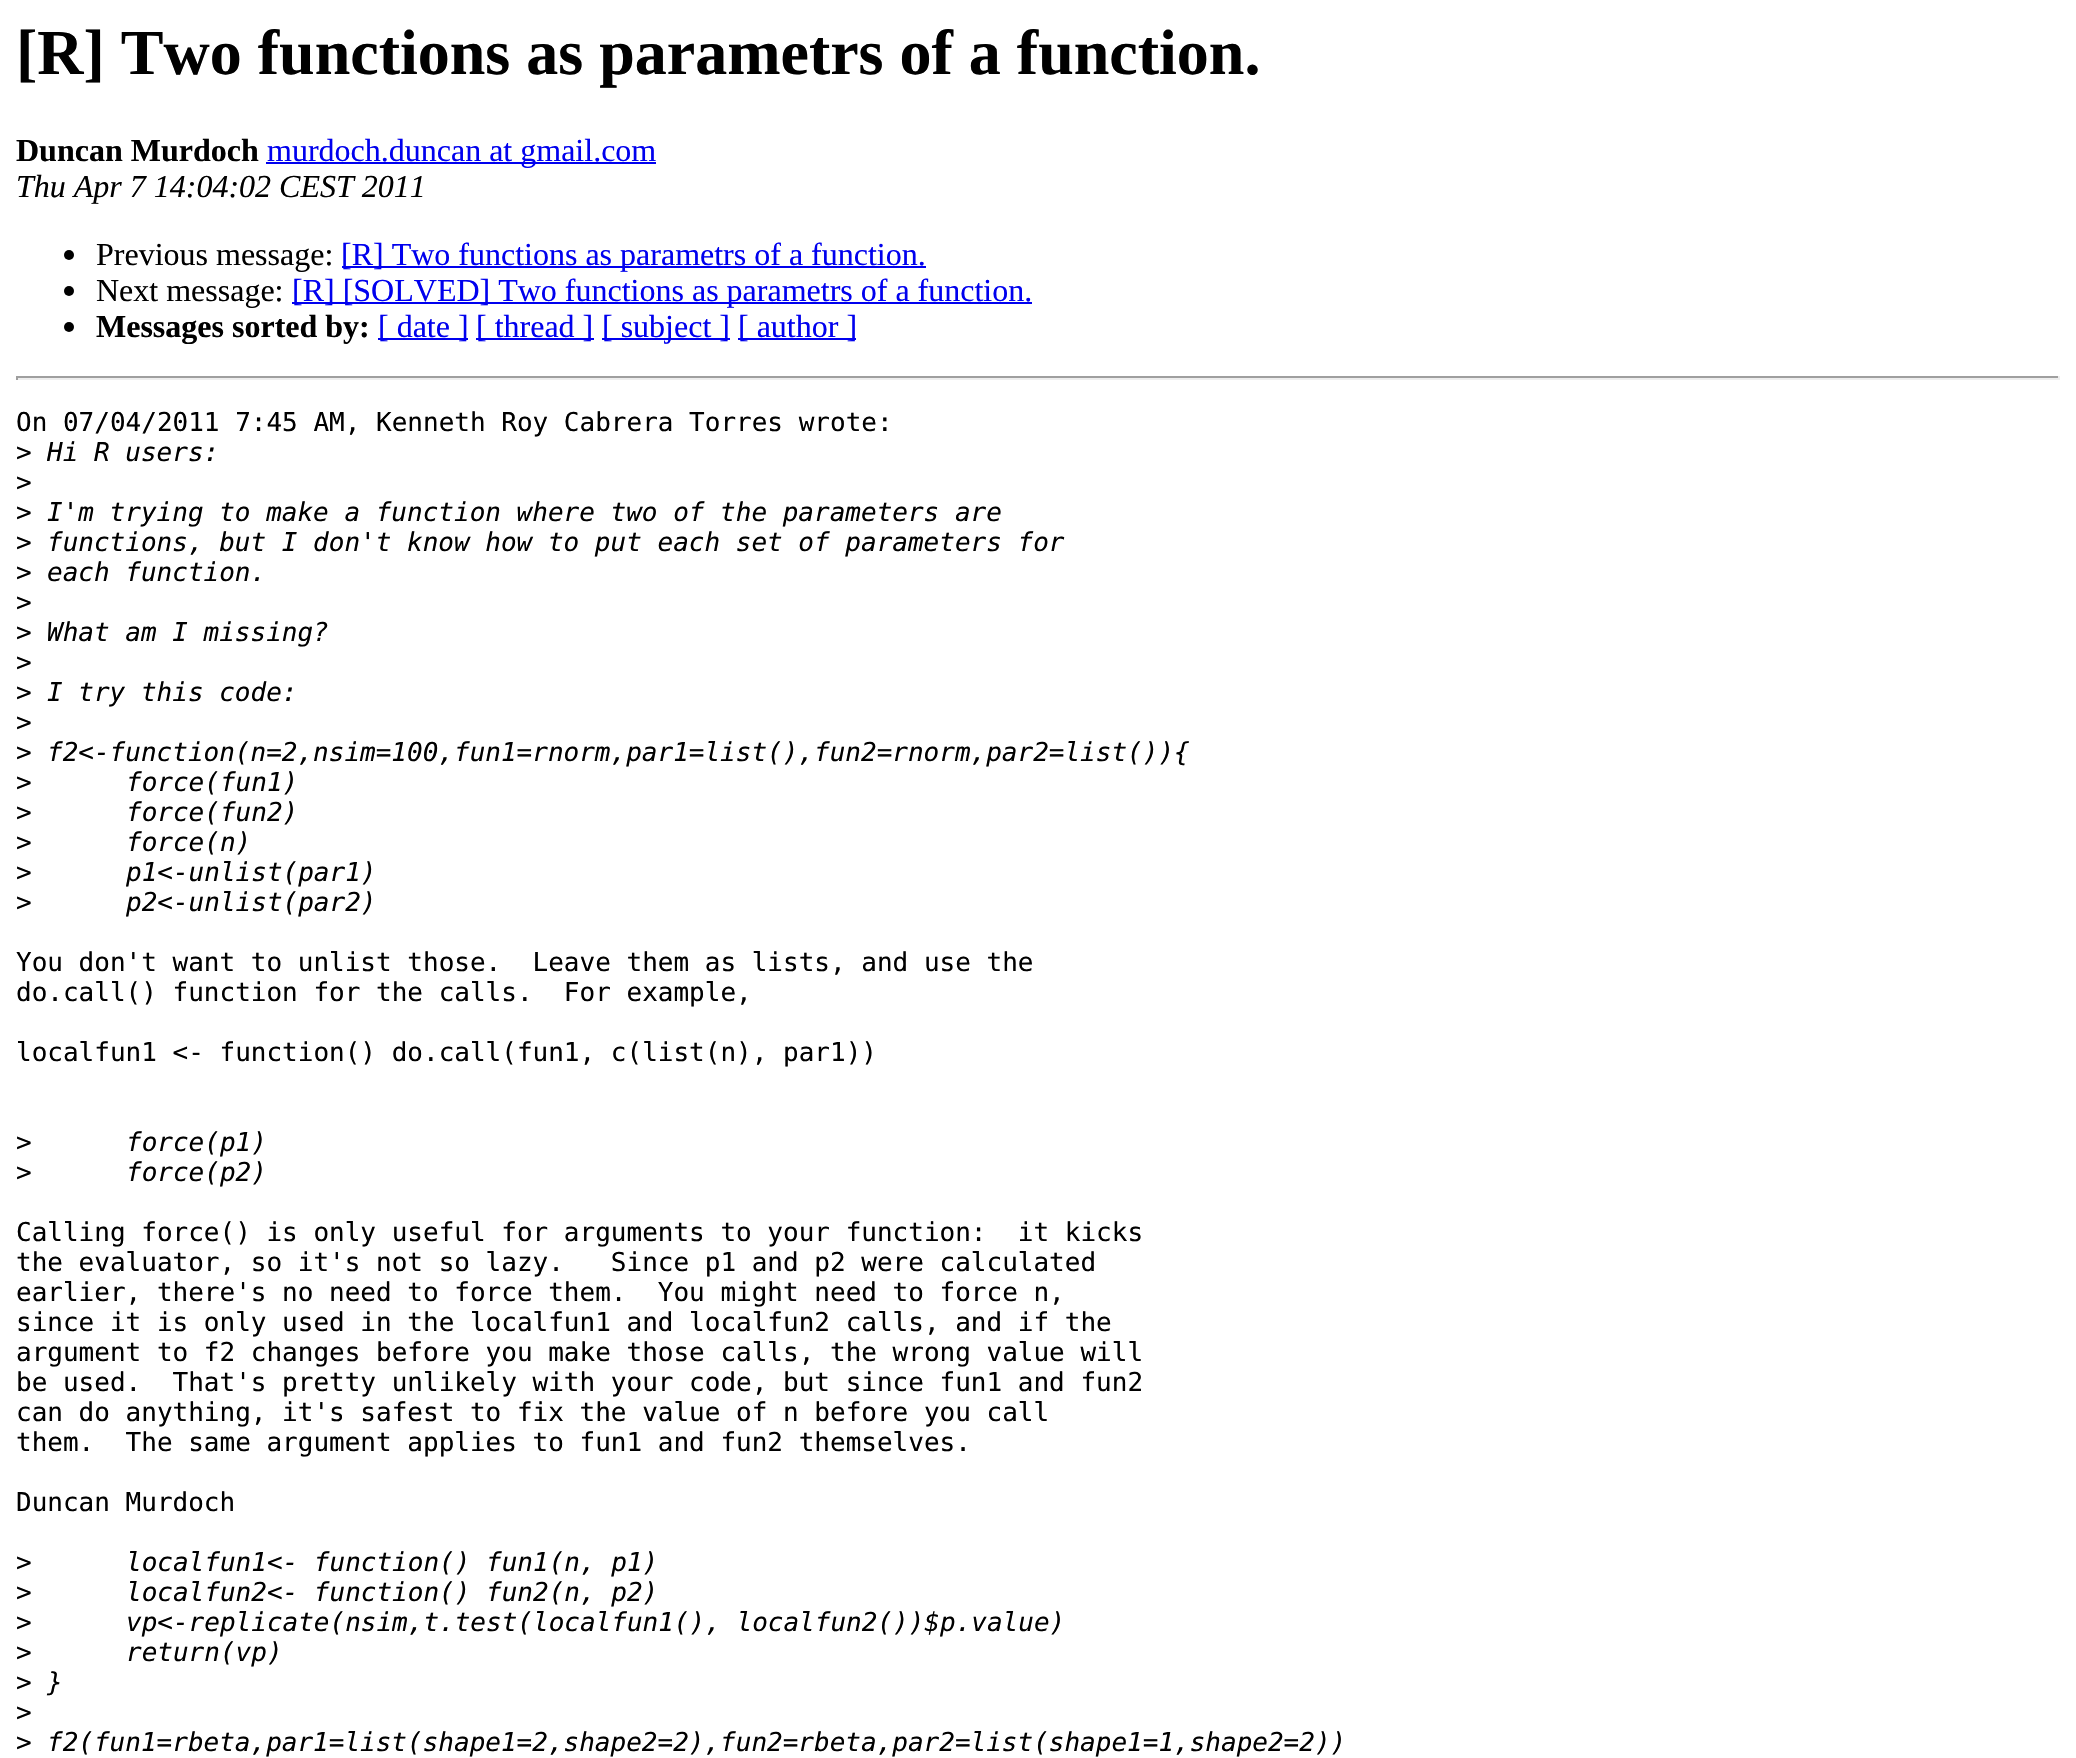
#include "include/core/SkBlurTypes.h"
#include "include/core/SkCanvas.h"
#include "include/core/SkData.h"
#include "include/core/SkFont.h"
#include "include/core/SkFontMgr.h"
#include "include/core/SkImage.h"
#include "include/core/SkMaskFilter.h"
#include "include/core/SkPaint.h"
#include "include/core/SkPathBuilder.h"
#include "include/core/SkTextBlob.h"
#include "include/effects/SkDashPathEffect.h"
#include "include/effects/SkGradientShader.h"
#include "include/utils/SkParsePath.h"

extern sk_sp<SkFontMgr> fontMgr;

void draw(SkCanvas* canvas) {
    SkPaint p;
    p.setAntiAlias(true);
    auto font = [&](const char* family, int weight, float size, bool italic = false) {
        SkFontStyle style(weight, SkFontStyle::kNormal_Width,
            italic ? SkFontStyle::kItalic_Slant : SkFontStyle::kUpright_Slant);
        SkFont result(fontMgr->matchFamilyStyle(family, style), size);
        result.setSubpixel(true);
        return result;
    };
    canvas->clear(0xFFFFFFFF);
    auto font1 = font("Liberation Serif", 700, 64);
    p.setColor(0xFF000000);
    canvas->drawString("[R] Two functions as parametrs of a function.", 16, 74, font1, p);
    auto font2 = font("Liberation Serif", 700, 32);
    canvas->drawString("Duncan Murdoch", 16, 161, font2, p);
    p.setColor(0xFF0000EE);
    canvas->drawRect(SkRect::MakeLTRB(266, 162, 656, 164), p);
    auto font3 = font("Liberation Serif", 400, 32);
    canvas->drawString("murdoch.duncan at gmail.com", 267, 161, font3, p);
    auto font4 = font("Liberation Serif", 400, 32, true);
    p.setColor(0xFF000000);
    canvas->drawString("Thu Apr 7 14:04:02 CEST 2011", 16, 197, font4, p);
    canvas->drawCircle(69, 255, 5, p);
    canvas->drawString("Previous message:", 96, 265, font3, p);
    p.setColor(0xFF0000EE);
    canvas->drawRect(SkRect::MakeLTRB(342, 266, 926, 268), p);
    canvas->drawString("[R] Two functions as parametrs of a function.", 341, 265, font3, p);
    p.setColor(0xFF000000);
    canvas->drawCircle(69, 291, 5, p);
    canvas->drawString("Next message:", 96, 301, font3, p);
    p.setColor(0xFF0000EE);
    canvas->drawRect(SkRect::MakeLTRB(292, 302, 1032, 304), p);
    canvas->drawString("[R] [SOLVED] Two functions as parametrs of a function.", 292, 301, font3, p);
    p.setColor(0xFF000000);
    canvas->drawCircle(69, 327, 5, p);
    canvas->drawString("Messages sorted by:", 96, 337, font2, p);
    p.setColor(0xFF0000EE);
    canvas->drawRect(SkRect::MakeLTRB(378, 338, 468, 340), p);
    canvas->drawString("[ date ]", 378, 337, font3, p);
    canvas->drawRect(SkRect::MakeLTRB(476, 338, 594, 340), p);
    canvas->drawString("[ thread ]", 476, 337, font3, p);
    canvas->drawRect(SkRect::MakeLTRB(602, 338, 730, 340), p);
    canvas->drawString("[ subject ]", 602, 337, font3, p);
    canvas->drawRect(SkRect::MakeLTRB(738, 338, 856, 340), p);
    canvas->drawString("[ author ]", 738, 337, font3, p);
    {
        const struct { float l, t, r, b; SkColor color; } items[] = {
            {16, 376, 2060, 378, 0xFF9F9F9F},
            {2058, 376, 2060, 380, 0xFFEEEEEE},
            {16, 378, 2060, 380, 0xFFEEEEEE},
            {16, 376, 18, 380, 0xFF9F9F9F},
        };
        for (auto [l, t, r, b, color] : items) {
            p.setColor(color);
            canvas->drawRect(SkRect::MakeLTRB(l, t, r, b), p);
        }
    }
    auto font5 = font("DejaVu Sans Mono", 400, 26);
    p.setColor(0xFF000000);
    canvas->drawString("On 07/04/2011 7:45 AM, Kenneth Roy Cabrera Torres wrote:", 16, 431, font5, p);
    canvas->drawString(">", 16, 461, font5, p);
    auto font6 = font("DejaVu Sans Mono", 400, 26, true);
    canvas->drawString("Hi R users:", 47, 461, font6, p);
    canvas->drawString(">", 16, 491, font5, p);
    canvas->drawString(">", 16, 521, font5, p);
    canvas->drawString("I'm trying to make a function where two of the parameters are", 47, 521, font6, p);
    canvas->drawString(">", 16, 551, font5, p);
    canvas->drawString("functions, but I don't know how to put each set of parameters for", 47, 551, font6, p);
    canvas->drawString(">", 16, 581, font5, p);
    canvas->drawString("each function.", 47, 581, font6, p);
    canvas->drawString(">", 16, 611, font5, p);
    canvas->drawString(">", 16, 641, font5, p);
    canvas->drawString("What am I missing?", 47, 641, font6, p);
    canvas->drawString(">", 16, 671, font5, p);
    canvas->drawString(">", 16, 701, font5, p);
    canvas->drawString("I try this code:", 47, 701, font6, p);
    canvas->drawString(">", 16, 731, font5, p);
    canvas->drawString(">", 16, 761, font5, p);
    canvas->drawString("f2<-function(n=2,nsim=100,fun1=rnorm,par1=list(),fun2=rnorm,par2=list()){", 47, 761, font6, p);
    canvas->drawString(">", 16, 791, font5, p);
    canvas->drawString("force(fun1)", 126, 791, font6, p);
    canvas->drawString(">", 16, 821, font5, p);
    canvas->drawString("force(fun2)", 126, 821, font6, p);
    canvas->drawString(">", 16, 851, font5, p);
    canvas->drawString("force(n)", 126, 851, font6, p);
    canvas->drawString(">", 16, 881, font5, p);
    canvas->drawString("p1<-unlist(par1)", 126, 881, font6, p);
    canvas->drawString(">", 16, 911, font5, p);
    canvas->drawString("p2<-unlist(par2)", 126, 911, font6, p);
    {
        const struct { const char* s; float x, y; } items[] = {
            {"You don't want to unlist those.  Leave them as lists, and use the", 16, 971},
            {"do.call() function for the calls.  For example,", 16, 1001},
            {"localfun1 <- function() do.call(fun1, c(list(n), par1))", 16, 1061},
            {">", 16, 1151},
        };
        for (auto [s, x, y] : items) {
            canvas->drawString(s, x, y, font5, p);
        }
    }
    canvas->drawString("force(p1)", 126, 1151, font6, p);
    canvas->drawString(">", 16, 1181, font5, p);
    canvas->drawString("force(p2)", 126, 1181, font6, p);
    {
        const struct { const char* s; float x, y; } items[] = {
            {"Calling force() is only useful for arguments to your function:  it kicks", 16, 1241},
            {"the evaluator, so it's not so lazy.   Since p1 and p2 were calculated", 16, 1271},
            {"earlier, there's no need to force them.  You might need to force n,", 16, 1301},
            {"since it is only used in the localfun1 and localfun2 calls, and if the", 16, 1331},
            {"argument to f2 changes before you make those calls, the wrong value will", 16, 1361},
            {"be used.  That's pretty unlikely with your code, but since fun1 and fun2", 16, 1391},
            {"can do anything, it's safest to fix the value of n before you call", 16, 1421},
            {"them.  The same argument applies to fun1 and fun2 themselves.", 16, 1451},
            {"Duncan Murdoch", 16, 1511},
            {">", 16, 1571},
        };
        for (auto [s, x, y] : items) {
            canvas->drawString(s, x, y, font5, p);
        }
    }
    canvas->drawString("localfun1<- function() fun1(n, p1)", 126, 1571, font6, p);
    canvas->drawString(">", 16, 1601, font5, p);
    canvas->drawString("localfun2<- function() fun2(n, p2)", 126, 1601, font6, p);
    canvas->drawString(">", 16, 1631, font5, p);
    canvas->drawString("vp<-replicate(nsim,t.test(localfun1(), localfun2())$p.value)", 126, 1631, font6, p);
    canvas->drawString(">", 16, 1661, font5, p);
    canvas->drawString("return(vp)", 126, 1661, font6, p);
    canvas->drawString(">", 16, 1691, font5, p);
    canvas->drawString("}", 47, 1691, font6, p);
    canvas->drawString(">", 16, 1721, font5, p);
    canvas->drawString(">", 16, 1751, font5, p);
    canvas->drawString("f2(fun1=rbeta,par1=list(shape1=2,shape2=2),fun2=rbeta,par2=list(shape1=1,shape2=2))", 47, 1751, font6, p);
}
